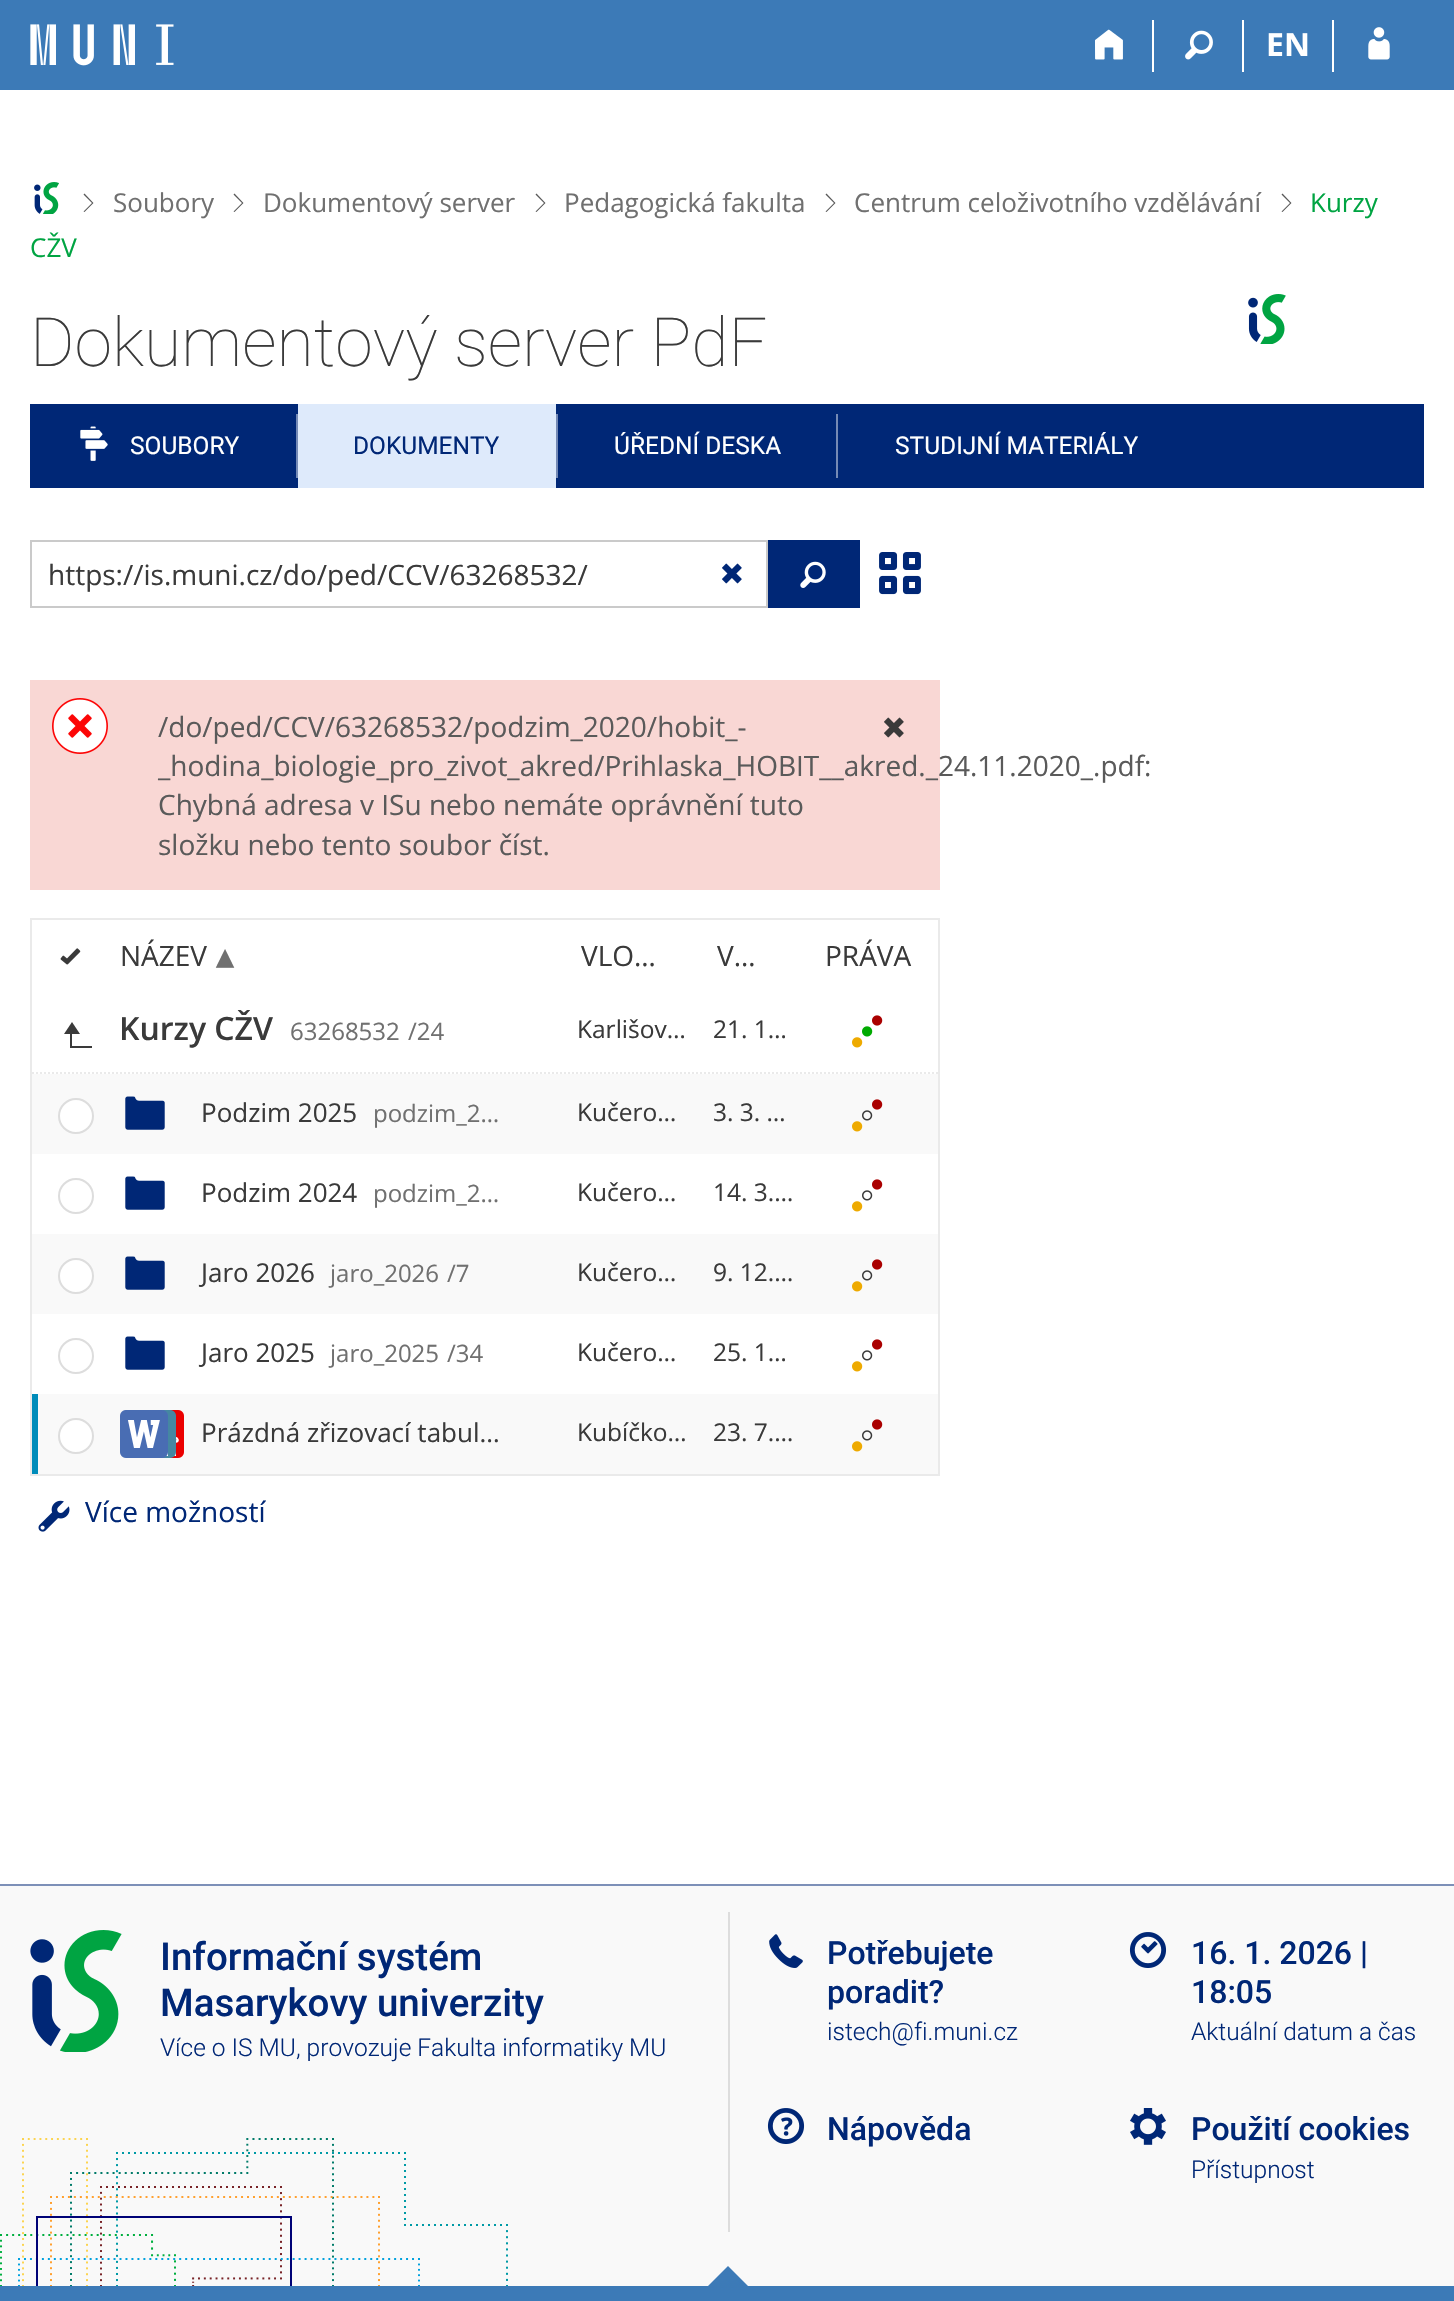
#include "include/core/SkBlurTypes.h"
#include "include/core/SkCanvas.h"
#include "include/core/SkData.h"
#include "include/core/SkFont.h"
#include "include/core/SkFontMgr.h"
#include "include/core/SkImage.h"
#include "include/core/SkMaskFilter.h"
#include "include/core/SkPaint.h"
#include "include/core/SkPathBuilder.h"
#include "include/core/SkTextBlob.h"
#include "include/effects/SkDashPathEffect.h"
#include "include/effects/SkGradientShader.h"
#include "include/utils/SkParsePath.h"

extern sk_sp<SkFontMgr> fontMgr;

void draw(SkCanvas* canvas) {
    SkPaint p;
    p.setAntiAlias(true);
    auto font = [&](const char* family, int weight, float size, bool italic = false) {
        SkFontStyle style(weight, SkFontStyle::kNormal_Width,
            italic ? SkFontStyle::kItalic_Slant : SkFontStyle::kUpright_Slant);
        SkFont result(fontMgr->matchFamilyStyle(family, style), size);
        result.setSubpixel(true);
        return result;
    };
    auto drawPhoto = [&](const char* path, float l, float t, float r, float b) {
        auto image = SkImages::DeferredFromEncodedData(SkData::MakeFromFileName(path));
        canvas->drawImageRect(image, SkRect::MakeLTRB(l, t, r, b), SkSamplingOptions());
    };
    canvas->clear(0xFFFFFFFF);
    p.setColor(0xFF3C7AB7);
    canvas->drawRect(SkRect::MakeLTRB(0, 0, 1454, 90), p);
    drawPhoto("media/1.png", 30, 24, 174, 66);
    p.setColor(0xFFFFFFFF);
    canvas->drawRect(SkRect::MakeLTRB(1152, 20, 1154, 72), p);
    drawPhoto("media/2.png", 1095, 29, 1123, 60);
    canvas->drawRect(SkRect::MakeLTRB(1242, 20, 1244, 72), p);
    drawPhoto("media/3.png", 1185, 30, 1213, 60);
    canvas->drawRect(SkRect::MakeLTRB(1332, 20, 1334, 72), p);
    auto font1 = font("Open Sans", 700, 32);
    canvas->drawString("EN", 1266, 56, font1, p);
    drawPhoto("media/4.png", 1368, 27, 1390, 60);
    drawPhoto("media/5.png", 34, 182, 59, 214);
    p.setColor(0xFF5A5A5A);
    canvas->drawPath(SkPathBuilder().moveTo(84.5f, 212).lineTo(83.5f, 211.5f).lineTo(92, 203).lineTo(83.5f, 194.5f).lineTo(84.5f, 193.5f).lineTo(93.5f, 203).close().detach(), p);
    auto font2 = font("Open Sans", 400, 26);
    p.setColor(0xFF707070);
    canvas->drawString("Soubory", 113, 212, font2, p);
    p.setColor(0xFF5A5A5A);
    canvas->drawPath(SkPathBuilder().moveTo(234.5f, 212).lineTo(233.5f, 211.5f).lineTo(242, 203).lineTo(233.5f, 194.5f).lineTo(234.5f, 193.5f).lineTo(243.5f, 203).close().detach(), p);
    p.setColor(0xFF707070);
    canvas->drawString("Dokumentový server", 263, 212, font2, p);
    p.setColor(0xFF5A5A5A);
    canvas->drawPath(SkPathBuilder().moveTo(536.5f, 212).lineTo(535.5f, 211.5f).lineTo(544, 203).lineTo(535.5f, 194.5f).lineTo(536.5f, 193.5f).lineTo(545.5f, 203).close().detach(), p);
    p.setColor(0xFF707070);
    canvas->drawString("Pedagogická fakulta", 564, 212, font2, p);
    p.setColor(0xFF5A5A5A);
    canvas->drawPath(SkPathBuilder().moveTo(826.5f, 212).lineTo(825.5f, 211.5f).lineTo(834, 203).lineTo(825.5f, 194.5f).lineTo(826.5f, 193.5f).lineTo(835.5f, 203).close().detach(), p);
    p.setColor(0xFF707070);
    canvas->drawString("Centrum celoživotního vzdělávání", 854, 212, font2, p);
    p.setColor(0xFF5A5A5A);
    canvas->drawPath(SkPathBuilder().moveTo(1282.5f, 212).lineTo(1281.5f, 211.5f).lineTo(1290, 203).lineTo(1281.5f, 194.5f).lineTo(1282.5f, 193.5f).lineTo(1291.5f, 203).close().detach(), p);
    p.setColor(0xFF00A442);
    canvas->drawString("Kurzy", 1310, 212, font2, p);
    canvas->drawString("CŽV", 30, 257, font2, p);
    auto font3 = font("Roboto", 100, 68);
    p.setColor(0xFF3A3A3A);
    canvas->drawString("Dokumentový server PdF", 30, 366, font3, p);
    drawPhoto("media/6.png", 1248, 294, 1286, 344);
    p.setColor(0xFF002776);
    canvas->drawRect(SkRect::MakeLTRB(30, 404, 1424, 488), p);
    drawPhoto("media/7.png", 80, 426, 108, 461);
    auto font4 = font("Roboto", 400, 24.5f);
    p.setColor(0xFFFFFFFF);
    canvas->drawString("SOUBORY", 130, 454, font4, p);
    p.setColor(0xFFDEEAFB);
    canvas->drawRect(SkRect::MakeLTRB(298, 404, 556, 488), p);
    p.setColor(0xFF758AB5);
    canvas->drawRect(SkRect::MakeLTRB(296, 414, 298, 478), p);
    p.setColor(0xFF002776);
    canvas->drawString("DOKUMENTY", 353, 454, font4, p);
    p.setColor(0xFF758AB5);
    canvas->drawRect(SkRect::MakeLTRB(556, 414, 558, 478), p);
    p.setColor(0xFFFFFFFF);
    canvas->drawString("ÚŘEDNÍ DESKA", 614, 454, font4, p);
    p.setColor(0xFF758AB5);
    canvas->drawRect(SkRect::MakeLTRB(836, 414, 838, 478), p);
    p.setColor(0xFFFFFFFF);
    canvas->drawString("STUDIJNÍ MATERIÁLY", 895, 454, font4, p);
    p.setStyle(SkPaint::kStroke_Style);
    p.setStrokeWidth(2);
    p.setColor(0xFFCACACA);
    canvas->drawRect(SkRect::MakeLTRB(31, 541, 767, 607), p);
    auto font5 = font("Open Sans", 400, 28);
    p.setStyle(SkPaint::kFill_Style);
    p.setColor(0xFF3A3A3A);
    canvas->drawString("https://is.muni.cz/do/ped/CCV/63268532/", 48, 585, font5, p);
    drawPhoto("media/8.png", 722, 563, 742, 584);
    p.setColor(0xFF002776);
    canvas->drawRect(SkRect::MakeLTRB(768, 540, 860, 608), p);
    drawPhoto("media/9.png", 800, 561, 826, 588);
    drawPhoto("media/10.png", 879, 552, 921, 595);
    p.setColor(0xFFF9D7D4);
    canvas->drawRect(SkRect::MakeLTRB(30, 680, 940, 890), p);
    p.setColor(0xFFFFFFFF);
    canvas->drawCircle(80, 726, 28, p);
    drawPhoto("media/11.png", 52, 698, 108, 754);
    p.setColor(0xFF5A5A5A);
    {
        const struct { const char* s; float x, y; } items[] = {
            {"/do/ped/CCV/63268532/podzim_2020/hobit_-", 158, 737},
            {"_hodina_biologie_pro_zivot_akred/Prihlaska_HOBIT__akred._24.11.2020_.pdf:", 158, 776},
            {"Chybná adresa v ISu nebo nemáte oprávnění tuto", 158, 815},
            {"složku nebo tento soubor číst.", 158, 855},
        };
        for (auto [s, x, y] : items) {
            canvas->drawString(s, x, y, font5, p);
        }
    }
    drawPhoto("media/12.png", 884, 717, 904, 738);
    p.setStyle(SkPaint::kStroke_Style);
    p.setColor(0xFFEAEAEA);
    canvas->drawRect(SkRect::MakeLTRB(31, 919, 939, 1475), p);
    drawPhoto("media/13.png", 60, 948, 81, 965);
    p.setStyle(SkPaint::kFill_Style);
    p.setColor(0xFF3A3A3A);
    canvas->drawString("NÁZEV", 120, 966, font5, p);
    auto font6 = font("DejaVu Sans", 700, 34);
    p.setColor(0xFF707070);
    canvas->drawString("▴", 216, 968, font6, p);
    p.setColor(0xFF3A3A3A);
    {
        const struct { const char* s; float x, y; } items[] = {
            {"VLO…", 581, 966},
            {"V…", 717, 966},
            {"PRÁVA", 825, 966},
        };
        for (auto [s, x, y] : items) {
            canvas->drawString(s, x, y, font5, p);
        }
    }
    p.setStyle(SkPaint::kStroke_Style);
    p.setColor(0xFFEAEAEA);
    p.setPathEffect(SkDashPathEffect::Make({{2, 2}}, 0));
    canvas->drawPath(SkPathBuilder().moveTo(32, 1073).lineTo(938, 1073).detach(), p);
    p.setPathEffect(nullptr);
    p.setStyle(SkPaint::kFill_Style);
    p.setColor(0xFF3A3A3A);
    canvas->drawPath(SkPathBuilder().moveTo(80, 1034).lineTo(64, 1034).lineTo(72, 1022).close().detach(), p);
    canvas->drawRect(SkRect::MakeLTRB(70, 1046, 92, 1048), p);
    canvas->drawRect(SkRect::MakeLTRB(70, 1032, 72, 1048), p);
    auto font7 = font("Open Sans", 600, 32);
    canvas->drawString("Kurzy CŽV", 119, 1040, font7, p);
    auto font8 = font("Open Sans", 400, 24);
    p.setColor(0xFF707070);
    canvas->drawString("63268532", 290, 1040, font8, p);
    canvas->drawString("/24", 408, 1040, font8, p);
    auto font9 = font("Open Sans", 400, 24.5f);
    p.setColor(0xFF3A3A3A);
    canvas->drawString("Karlišov…", 577, 1038, font9, p);
    canvas->drawString("21. 1…", 713, 1038, font9, p);
    drawPhoto("media/14.png", 872, 1015, 883, 1026);
    drawPhoto("media/15.png", 862, 1026, 873, 1037);
    drawPhoto("media/16.png", 852, 1037, 863, 1048);
    p.setColor(0xFFF9F9F9);
    canvas->drawRect(SkRect::MakeLTRB(32, 1074, 798, 1154), p);
    p.setColor(0xFFFFFFFF);
    canvas->drawCircle(76, 1116, 17, p);
    p.setStyle(SkPaint::kStroke_Style);
    p.setColor(0xFFDDDDDD);
    canvas->drawCircle(76, 1116, 17, p);
    p.setStyle(SkPaint::kFill_Style);
    p.setColor(0xFFF9F9F9);
    canvas->drawRect(SkRect::MakeLTRB(798, 1074, 938, 1154), p);
    drawPhoto("media/17.png", 872, 1099, 883, 1110);
    drawPhoto("media/18.png", 862, 1110, 873, 1121);
    drawPhoto("media/19.png", 852, 1121, 863, 1132);
    drawPhoto("media/20.png", 125, 1096, 165, 1130);
    p.setColor(0xFF3A3A3A);
    canvas->drawString("Podzim 2025", 201, 1122, font2, p);
    p.setColor(0xFF707070);
    canvas->drawString("podzim_2…", 373, 1122, font8, p);
    p.setColor(0xFF3A3A3A);
    canvas->drawString("Kučero…", 577, 1121, font9, p);
    canvas->drawString("3. 3. …", 713, 1121, font9, p);
    p.setStyle(SkPaint::kStroke_Style);
    p.setColor(0xFFDDDDDD);
    canvas->drawCircle(76, 1196, 17, p);
    drawPhoto("media/21.png", 125, 1176, 165, 1210);
    p.setStyle(SkPaint::kFill_Style);
    p.setColor(0xFF3A3A3A);
    canvas->drawString("Podzim 2024", 201, 1202, font2, p);
    p.setColor(0xFF707070);
    canvas->drawString("podzim_2…", 373, 1202, font8, p);
    p.setColor(0xFF3A3A3A);
    canvas->drawString("Kučero…", 577, 1201, font9, p);
    canvas->drawString("14. 3.…", 713, 1201, font9, p);
    drawPhoto("media/14.png", 872, 1179, 883, 1190);
    drawPhoto("media/22.png", 862, 1190, 873, 1201);
    drawPhoto("media/16.png", 852, 1201, 863, 1212);
    p.setColor(0xFFF9F9F9);
    canvas->drawRect(SkRect::MakeLTRB(32, 1234, 798, 1314), p);
    p.setColor(0xFFFFFFFF);
    canvas->drawCircle(76, 1276, 17, p);
    p.setStyle(SkPaint::kStroke_Style);
    p.setColor(0xFFDDDDDD);
    canvas->drawCircle(76, 1276, 17, p);
    p.setStyle(SkPaint::kFill_Style);
    p.setColor(0xFFF9F9F9);
    canvas->drawRect(SkRect::MakeLTRB(798, 1234, 938, 1314), p);
    drawPhoto("media/17.png", 872, 1259, 883, 1270);
    drawPhoto("media/18.png", 862, 1270, 873, 1281);
    drawPhoto("media/19.png", 852, 1281, 863, 1292);
    drawPhoto("media/20.png", 125, 1256, 165, 1290);
    p.setColor(0xFF3A3A3A);
    canvas->drawString("Jaro 2026", 201, 1282, font2, p);
    p.setColor(0xFF707070);
    canvas->drawString("jaro_2026", 330, 1282, font8, p);
    canvas->drawString("/7", 447, 1282, font8, p);
    p.setColor(0xFF3A3A3A);
    canvas->drawString("Kučero…", 577, 1281, font9, p);
    canvas->drawString("9. 12.…", 713, 1281, font9, p);
    p.setStyle(SkPaint::kStroke_Style);
    p.setColor(0xFFDDDDDD);
    canvas->drawCircle(76, 1356, 17, p);
    drawPhoto("media/21.png", 125, 1336, 165, 1370);
    p.setStyle(SkPaint::kFill_Style);
    p.setColor(0xFF3A3A3A);
    canvas->drawString("Jaro 2025", 201, 1362, font2, p);
    p.setColor(0xFF707070);
    canvas->drawString("jaro_2025", 330, 1362, font8, p);
    canvas->drawString("/34", 447, 1362, font8, p);
    p.setColor(0xFF3A3A3A);
    canvas->drawString("Kučero…", 577, 1361, font9, p);
    canvas->drawString("25. 1…", 713, 1361, font9, p);
    drawPhoto("media/14.png", 872, 1339, 883, 1350);
    drawPhoto("media/22.png", 862, 1350, 873, 1361);
    drawPhoto("media/16.png", 852, 1361, 863, 1372);
    p.setColor(0xFFF9F9F9);
    canvas->drawRect(SkRect::MakeLTRB(38, 1394, 798, 1474), p);
    p.setColor(0xFF008CBA);
    canvas->drawRect(SkRect::MakeLTRB(32, 1394, 38, 1474), p);
    p.setColor(0xFFFFFFFF);
    canvas->drawCircle(76, 1436, 17, p);
    p.setStyle(SkPaint::kStroke_Style);
    p.setColor(0xFFDDDDDD);
    canvas->drawCircle(76, 1436, 17, p);
    p.setStyle(SkPaint::kFill_Style);
    p.setColor(0xFFF9F9F9);
    canvas->drawRect(SkRect::MakeLTRB(798, 1394, 938, 1474), p);
    drawPhoto("media/17.png", 872, 1419, 883, 1430);
    drawPhoto("media/18.png", 862, 1430, 873, 1441);
    drawPhoto("media/19.png", 852, 1441, 863, 1452);
    p.setColor(0xFFFFFFFF);
    canvas->drawRect(SkRect::MakeLTRB(176, 1437, 184, 1456), p);
    drawPhoto("media/25.png", 170, 1410, 184, 1458);
    canvas->drawRect(SkRect::MakeLTRB(174, 1452, 176, 1456), p);
    drawPhoto("media/24.png", 162, 1410, 176, 1458);
    canvas->drawRect(SkRect::MakeLTRB(120, 1420, 168, 1456), p);
    drawPhoto("media/23.png", 120, 1410, 168, 1458);
    p.setColor(0xFF3A3A3A);
    canvas->drawString("Prázdná zřizovací tabul…", 201, 1442, font2, p);
    canvas->drawString("Kubíčko…", 577, 1441, font9, p);
    canvas->drawString("23. 7.…", 713, 1441, font9, p);
    drawPhoto("media/26.png", 38, 1500, 70, 1532);
    p.setColor(0xFF002776);
    canvas->drawString("Více možností", 85, 1522, font5, p);
    p.setColor(0xFFF9F9F9);
    canvas->drawRect(SkRect::MakeLTRB(0, 1886, 1454, 2286), p);
    p.setColor(0xFF7D90B8);
    canvas->drawRect(SkRect::MakeLTRB(0, 1884, 1454, 1886), p);
    drawPhoto("media/27.png", 0, 2138, 508, 2286);
    drawPhoto("media/28.png", 30, 1930, 122, 2052);
    auto font10 = font("Roboto", 500, 38.5f);
    p.setColor(0xFF002776);
    canvas->drawString("Informační systém", 160, 1970, font10, p);
    canvas->drawString("Masarykovy univerzity", 160, 2016, font10, p);
    auto font11 = font("Roboto", 300, 24.5f);
    canvas->drawString("Více o IS MU, provozuje Fakulta informatiky MU", 160, 2056, font11, p);
    p.setColor(0xFFDDDDDD);
    canvas->drawRect(SkRect::MakeLTRB(728, 1912, 730, 2232), p);
    drawPhoto("media/29.png", 769, 1934, 803, 1968);
    auto font12 = font("Roboto", 500, 32);
    p.setColor(0xFF002776);
    canvas->drawString("Potřebujete", 827, 1964, font12, p);
    canvas->drawString("poradit?", 827, 2003, font12, p);
    canvas->drawString("istech@fi.muni.cz", 827, 2040, font11, p);
    drawPhoto("media/30.png", 767, 2108, 805, 2144);
    canvas->drawString("Nápověda", 827, 2140, font12, p);
    drawPhoto("media/31.png", 1129, 1932, 1167, 1968);
    canvas->drawString("16. 1. 2026 |", 1191, 1964, font12, p);
    canvas->drawString("18:05", 1191, 2003, font12, p);
    canvas->drawString("Aktuální datum a čas", 1191, 2040, font11, p);
    drawPhoto("media/32.png", 1130, 2108, 1166, 2145);
    canvas->drawString("Použití cookies", 1191, 2140, font12, p);
    canvas->drawString("Přístupnost", 1191, 2178, font11, p);
    p.setColor(0xFF3C7AB7);
    canvas->drawRect(SkRect::MakeLTRB(0, 2286, 1454, 2301), p);
    canvas->drawPath(SkPathBuilder().moveTo(750, 2288).lineTo(706, 2288).lineTo(728, 2266).close().detach(), p);
}
